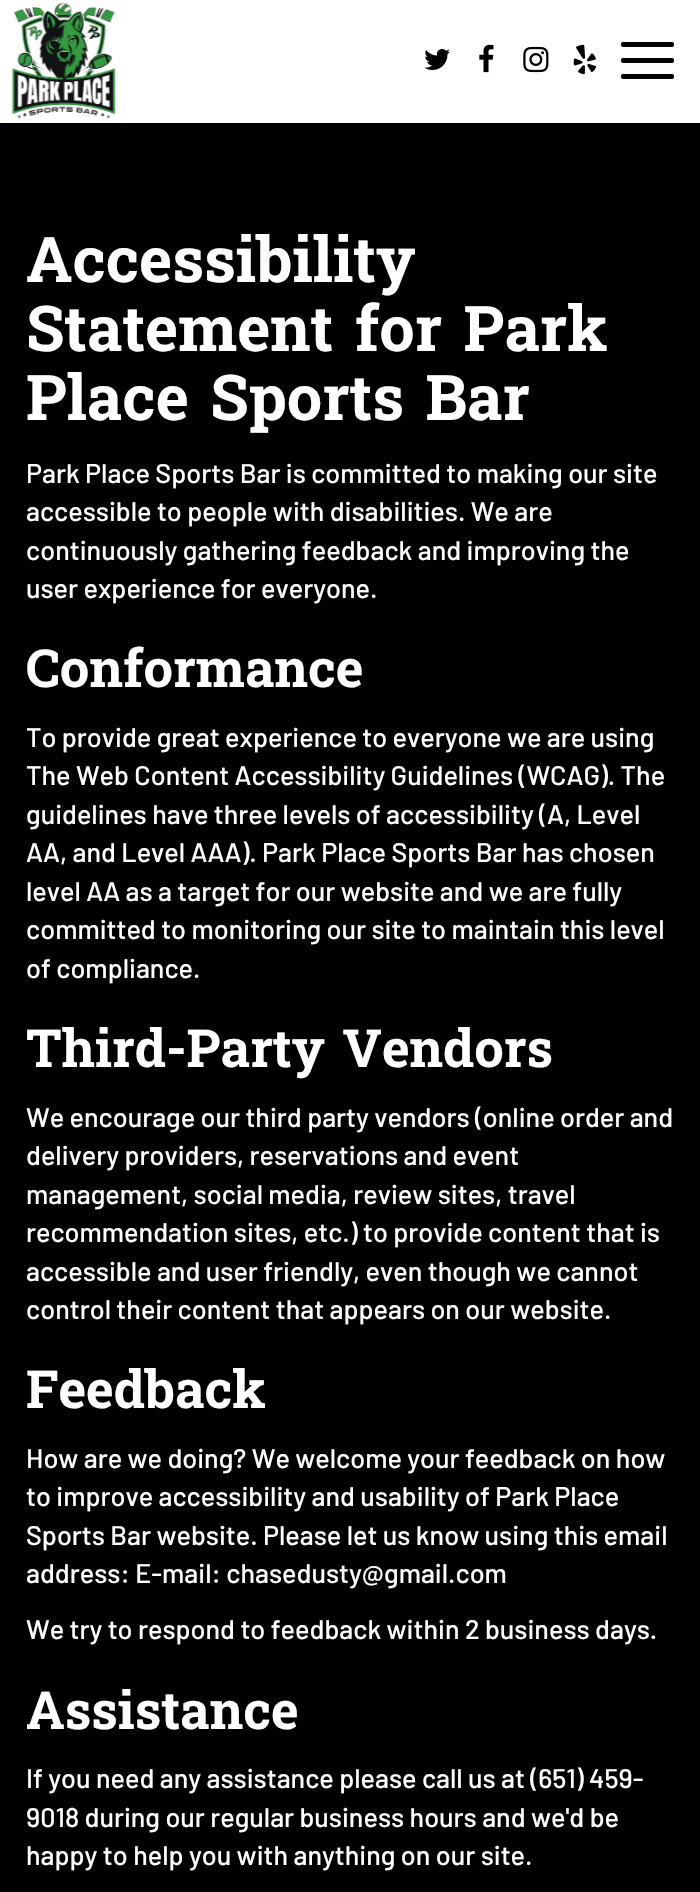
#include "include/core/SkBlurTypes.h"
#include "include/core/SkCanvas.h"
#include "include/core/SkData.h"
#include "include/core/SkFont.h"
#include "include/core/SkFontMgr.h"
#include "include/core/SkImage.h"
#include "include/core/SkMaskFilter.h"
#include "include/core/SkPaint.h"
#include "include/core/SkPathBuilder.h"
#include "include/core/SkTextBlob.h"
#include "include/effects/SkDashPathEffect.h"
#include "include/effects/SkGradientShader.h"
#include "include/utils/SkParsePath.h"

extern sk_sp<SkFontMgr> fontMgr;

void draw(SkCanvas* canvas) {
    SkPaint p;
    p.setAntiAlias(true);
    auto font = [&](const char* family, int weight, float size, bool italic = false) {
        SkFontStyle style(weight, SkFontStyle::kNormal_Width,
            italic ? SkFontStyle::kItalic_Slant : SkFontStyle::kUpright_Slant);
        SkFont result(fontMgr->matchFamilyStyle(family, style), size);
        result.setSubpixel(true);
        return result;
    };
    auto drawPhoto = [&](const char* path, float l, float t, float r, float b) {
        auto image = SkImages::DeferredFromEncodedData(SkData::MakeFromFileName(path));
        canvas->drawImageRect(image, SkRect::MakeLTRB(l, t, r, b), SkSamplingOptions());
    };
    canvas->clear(0xFF000000);
    p.setColor(0xFFFFFFFF);
    canvas->drawRect(SkRect::MakeLTRB(0, 0, 700, 123), p);
    drawPhoto("media/1.png", 11, 2, 116, 119);
    drawPhoto("media/2.png", 424, 49, 450, 70);
    drawPhoto("media/3.png", 479, 44, 494, 73);
    drawPhoto("media/4.png", 523, 46, 549, 73);
    drawPhoto("media/5.png", 573, 44, 596, 75);
    p.setColor(0xFF000000);
    canvas->drawRoundRect(SkRect::MakeLTRB(621, 42, 674, 47), 2, 2, p);
    canvas->drawRoundRect(SkRect::MakeLTRB(621, 58, 674, 63), 2, 2, p);
    canvas->drawRoundRect(SkRect::MakeLTRB(621, 74, 674, 79), 2, 2, p);
    auto font1 = font("Suwannaphum", 700, 63);
    p.setColor(0xFFFFFFFF);
    {
        const struct { const char* s; float x, y; } items[] = {
            {"Accessibility", 26, 282},
            {"Statement for Park", 26, 351},
            {"Place Sports Bar", 26, 420},
        };
        for (auto [s, x, y] : items) {
            canvas->drawString(s, x, y, font1, p);
        }
    }
    auto font2 = font("Barlow", 500, 26.95f);
    {
        const struct { const char* s; float x, y; } items[] = {
            {"Park Place Sports Bar is committed to making our site", 26, 483},
            {"accessible to people with disabilities. We are", 26, 521},
            {"continuously gathering feedback and improving the", 26, 560},
            {"user experience for everyone.", 26, 598},
        };
        for (auto [s, x, y] : items) {
            canvas->drawString(s, x, y, font2, p);
        }
    }
    auto font3 = font("Suwannaphum", 700, 52.5f);
    canvas->drawString("Conformance", 26, 687, font3, p);
    {
        const struct { const char* s; float x, y; } items[] = {
            {"To provide great experience to everyone we are using", 26, 747},
            {"The Web Content Accessibility Guidelines (WCAG). The", 26, 785},
            {"guidelines have three levels of accessibility (A, Level", 26, 824},
            {"AA, and Level AAA). Park Place Sports Bar has chosen", 26, 862},
            {"level AA as a target for our website and we are fully", 26, 901},
            {"committed to monitoring our site to maintain this level", 26, 939},
            {"of compliance.", 26, 978},
        };
        for (auto [s, x, y] : items) {
            canvas->drawString(s, x, y, font2, p);
        }
    }
    canvas->drawString("Third-Party Vendors", 26, 1067, font3, p);
    {
        const struct { const char* s; float x, y; } items[] = {
            {"We encourage our third party vendors (online order and", 26, 1127},
            {"delivery providers, reservations and event", 26, 1165},
            {"management, social media, review sites, travel", 26, 1204},
            {"recommendation sites, etc.) to provide content that is", 26, 1242},
            {"accessible and user friendly, even though we cannot", 26, 1281},
            {"control their content that appears on our website.", 26, 1319},
        };
        for (auto [s, x, y] : items) {
            canvas->drawString(s, x, y, font2, p);
        }
    }
    canvas->drawString("Feedback", 26, 1408, font3, p);
    {
        const struct { const char* s; float x, y; } items[] = {
            {"How are we doing? We welcome your feedback on how", 26, 1468},
            {"to improve accessibility and usability of Park Place", 26, 1506},
            {"Sports Bar website. Please let us know using this email", 26, 1545},
            {"address: E-mail: chasedusty@gmail.com", 26, 1583},
            {"We try to respond to feedback within 2 business days.", 26, 1639},
        };
        for (auto [s, x, y] : items) {
            canvas->drawString(s, x, y, font2, p);
        }
    }
    canvas->drawString("Assistance", 26, 1729, font3, p);
    {
        const struct { const char* s; float x, y; } items[] = {
            {"If you need any assistance please call us at (651) 459-", 26, 1788},
            {"9018 during our regular business hours and we'd be", 26, 1827},
            {"happy to help you with anything on our site.", 26, 1865},
        };
        for (auto [s, x, y] : items) {
            canvas->drawString(s, x, y, font2, p);
        }
    }
}
